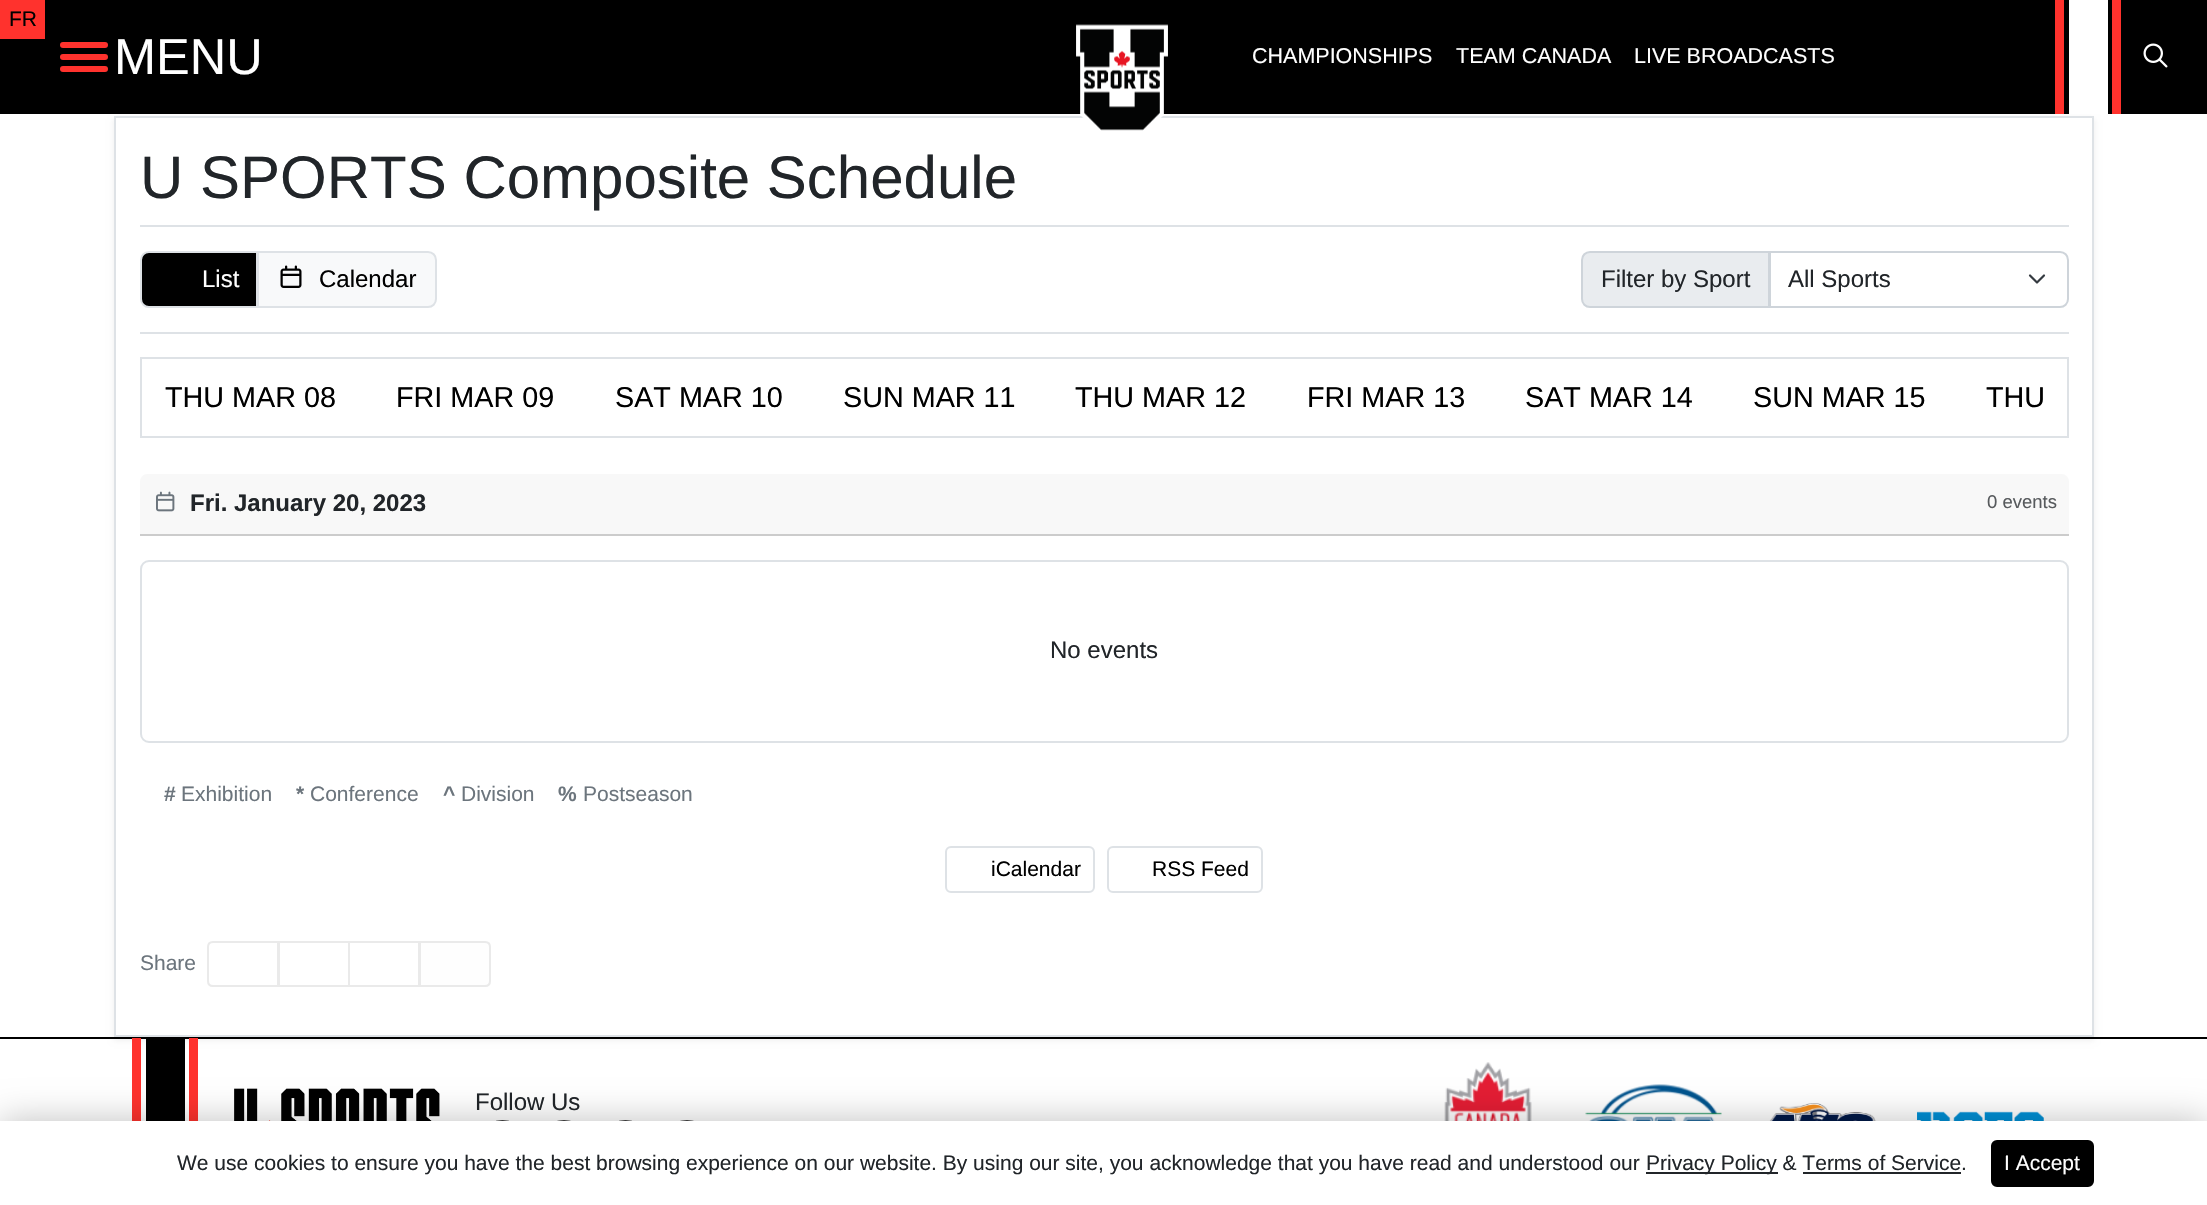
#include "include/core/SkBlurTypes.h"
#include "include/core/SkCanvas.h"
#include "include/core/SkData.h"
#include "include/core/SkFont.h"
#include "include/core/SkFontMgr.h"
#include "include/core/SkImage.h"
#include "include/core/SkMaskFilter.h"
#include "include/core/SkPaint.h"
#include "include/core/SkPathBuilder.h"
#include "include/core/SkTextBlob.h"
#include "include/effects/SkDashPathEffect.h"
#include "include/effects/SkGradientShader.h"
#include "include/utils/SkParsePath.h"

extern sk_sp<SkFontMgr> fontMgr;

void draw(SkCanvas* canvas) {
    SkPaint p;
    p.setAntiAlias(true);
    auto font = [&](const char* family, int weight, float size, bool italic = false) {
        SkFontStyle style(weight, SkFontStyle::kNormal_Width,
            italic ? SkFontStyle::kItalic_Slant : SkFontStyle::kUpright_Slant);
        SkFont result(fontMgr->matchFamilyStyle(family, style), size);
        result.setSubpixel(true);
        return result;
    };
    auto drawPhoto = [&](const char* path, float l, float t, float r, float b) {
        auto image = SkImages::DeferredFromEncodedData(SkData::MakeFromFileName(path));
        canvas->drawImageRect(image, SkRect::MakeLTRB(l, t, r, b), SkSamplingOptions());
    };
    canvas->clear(0xFFFFFFFF);
    p.setColor(0x12000000);
    p.setMaskFilter(SkMaskFilter::MakeBlur(kNormal_SkBlurStyle, 3));
    canvas->drawRect(SkRect::MakeLTRB(114, 119, 2094, 1040), p);
    p.setMaskFilter(nullptr);
    p.setColor(0xFF000000);
    canvas->drawRect(SkRect::MakeLTRB(0, 0, 2207, 114), p);
    p.setColor(0xFFFF322D);
    canvas->drawRect(SkRect::MakeLTRB(0, 0, 45, 39), p);
    auto font1 = font("Liberation Sans", 400, 21);
    p.setColor(0xFF000000);
    canvas->drawString("FR", 9, 26, font1, p);
    p.setColor(0xFFFF322D);
    canvas->drawRoundRect(SkRect::MakeLTRB(60, 42, 108, 48), 3, 3, p);
    canvas->drawRoundRect(SkRect::MakeLTRB(60, 54, 108, 60), 3, 3, p);
    canvas->drawRoundRect(SkRect::MakeLTRB(60, 66, 108, 72), 3, 3, p);
    auto font2 = font("Liberation Sans", 400, 50.5f);
    p.setColor(0xFFFFFFFF);
    canvas->drawString("MENU", 114, 74, font2, p);
    canvas->drawRect(SkRect::MakeLTRB(115, 117, 2093, 1036), p);
    p.setStyle(SkPaint::kStroke_Style);
    p.setStrokeWidth(2);
    p.setColor(0xFFDEE2E6);
    canvas->drawRect(SkRect::MakeLTRB(115, 117, 2093, 1036), p);
    drawPhoto("media/1.png", 1076, 24, 1168, 131);
    auto font3 = font("Liberation Sans", 400, 21.5f);
    p.setStyle(SkPaint::kFill_Style);
    p.setColor(0xFFFFFFFF);
    {
        const struct { const char* s; float x, y; } items[] = {
            {"CHAMPIONSHIPS", 1252, 63},
            {"TEAM CANADA", 1456, 63},
            {"LIVE BROADCASTS", 1634, 63},
        };
        for (auto [s, x, y] : items) {
            canvas->drawString(s, x, y, font3, p);
        }
    }
    {
        const struct { float l, t, r, b; SkColor color; } items[] = {
            {2112, 0, 2121, 114, 0xFFFF322D},
            {2055, 0, 2064, 114, 0xFFFF322D},
            {2069, 0, 2108, 114, 0xFFFFFFFF},
        };
        for (auto [l, t, r, b, color] : items) {
            p.setColor(color);
            canvas->drawRect(SkRect::MakeLTRB(l, t, r, b), p);
        }
    }
    drawPhoto("media/2.png", 2143, 43, 2168, 68);
    auto font4 = font("Liberation Sans", 400, 60);
    p.setColor(0xFF212529);
    canvas->drawString("U SPORTS Composite Schedule", 140, 198, font4, p);
    p.setColor(0xFFDEE2E6);
    canvas->drawRect(SkRect::MakeLTRB(140, 225, 2069, 227), p);
    canvas->drawRect(SkRect::MakeLTRB(140, 332, 2069, 334), p);
    p.setColor(0xFFF8F9FA);
    canvas->drawPath(SkPathBuilder().moveTo(258, 252).lineTo(428, 252).cubicTo(432.5f, 252, 436, 255.5f, 436, 260).lineTo(436, 299).cubicTo(436, 303.5f, 432.5f, 307, 428, 307).lineTo(258, 307).close().detach(), p);
    p.setStyle(SkPaint::kStroke_Style);
    p.setColor(0xFFDEE2E6);
    canvas->drawPath(SkPathBuilder().moveTo(258, 252).lineTo(428, 252).cubicTo(432.5f, 252, 436, 255.5f, 436, 260).lineTo(436, 299).cubicTo(436, 303.5f, 432.5f, 307, 428, 307).lineTo(258, 307).close().detach(), p);
    p.setStyle(SkPaint::kFill_Style);
    p.setColor(0xFF000000);
    canvas->drawPath(SkPathBuilder().moveTo(149, 252).lineTo(257, 252).lineTo(257, 307).lineTo(149, 307).cubicTo(144.5f, 307, 141, 303.5f, 141, 299).lineTo(141, 260).cubicTo(141, 255.5f, 144.5f, 252, 149, 252).close().detach(), p);
    p.setStyle(SkPaint::kStroke_Style);
    p.setColor(0xFFDEE2E6);
    canvas->drawPath(SkPathBuilder().moveTo(149, 252).lineTo(257, 252).lineTo(257, 307).lineTo(149, 307).cubicTo(144.5f, 307, 141, 303.5f, 141, 299).lineTo(141, 260).cubicTo(141, 255.5f, 144.5f, 252, 149, 252).close().detach(), p);
    auto font5 = font("Liberation Sans", 400, 24);
    p.setStyle(SkPaint::kFill_Style);
    p.setColor(0xFFFFFFFF);
    canvas->drawString("List", 202, 287, font5, p);
    drawPhoto("media/3.png", 280, 265, 302, 288);
    p.setColor(0xFF000000);
    canvas->drawString("Calendar", 319, 287, font5, p);
    p.setColor(0xFFE9ECEF);
    canvas->drawPath(SkPathBuilder().moveTo(1590, 252).lineTo(1769, 252).lineTo(1769, 307).lineTo(1590, 307).cubicTo(1585.5f, 307, 1582, 303.5f, 1582, 299).lineTo(1582, 260).cubicTo(1582, 255.5f, 1585.5f, 252, 1590, 252).close().detach(), p);
    p.setStyle(SkPaint::kStroke_Style);
    p.setColor(0xFFCED4DA);
    canvas->drawPath(SkPathBuilder().moveTo(1590, 252).lineTo(1769, 252).lineTo(1769, 307).lineTo(1590, 307).cubicTo(1585.5f, 307, 1582, 303.5f, 1582, 299).lineTo(1582, 260).cubicTo(1582, 255.5f, 1585.5f, 252, 1590, 252).close().detach(), p);
    p.setStyle(SkPaint::kFill_Style);
    p.setColor(0xFF212529);
    canvas->drawString("Filter by Sport", 1601, 287, font5, p);
    p.setColor(0xFFFFFFFF);
    canvas->drawPath(SkPathBuilder().moveTo(1769, 251).lineTo(2060, 251).cubicTo(2065, 251, 2069, 255, 2069, 260).lineTo(2069, 299).cubicTo(2069, 304, 2065, 308, 2060, 308).lineTo(1769, 308).close().detach(), p);
    p.setStyle(SkPaint::kStroke_Style);
    p.setStrokeWidth(2.2f);
    p.setStrokeCap(SkPaint::kRound_Cap);
    p.setStrokeJoin(SkPaint::kRound_Join);
    p.setColor(0xFF343A40);
    canvas->drawPath(SkPathBuilder().moveTo(2030, 275.5f).lineTo(2037, 282.5f).lineTo(2044, 275.5f).detach(), p);
    p.setStrokeWidth(2);
    p.setStrokeCap(SkPaint::kButt_Cap);
    p.setStrokeJoin(SkPaint::kMiter_Join);
    p.setColor(0xFFCED4DA);
    canvas->drawPath(SkPathBuilder().moveTo(1770, 252).lineTo(2060, 252).cubicTo(2064.5f, 252, 2068, 255.5f, 2068, 260).lineTo(2068, 299).cubicTo(2068, 303.5f, 2064.5f, 307, 2060, 307).lineTo(1770, 307).close().detach(), p);
    p.setStyle(SkPaint::kFill_Style);
    p.setColor(0xFF212529);
    canvas->drawString("All Sports", 1788, 287, font5, p);
    p.setStyle(SkPaint::kStroke_Style);
    p.setColor(0xFFDEE2E6);
    canvas->drawRect(SkRect::MakeLTRB(141, 358, 2068, 437), p);
    auto font6 = font("Liberation Sans", 400, 28.75f);
    p.setStyle(SkPaint::kFill_Style);
    p.setColor(0xFF000000);
    {
        const struct { const char* s; float x, y; } items[] = {
            {"THU MAR 08", 165, 407},
            {"FRI MAR 09", 396, 407},
            {"SAT MAR 10", 615, 407},
            {"SUN MAR 11", 843, 407},
            {"THU MAR 12", 1075, 407},
            {"FRI MAR 13", 1307, 407},
            {"SAT MAR 14", 1525, 407},
            {"SUN MAR 15", 1753, 407},
            {"THU", 1986, 407},
        };
        for (auto [s, x, y] : items) {
            canvas->drawString(s, x, y, font6, p);
        }
    }
    p.setColor(0xFFF8F8F8);
    canvas->drawPath(SkPathBuilder().moveTo(148, 474).lineTo(2061, 474).cubicTo(2065.5f, 474, 2069, 477.5f, 2069, 482).lineTo(2069, 536).lineTo(140, 536).lineTo(140, 482).cubicTo(140, 477.5f, 143.5f, 474, 148, 474).close().detach(), p);
    p.setColor(0xFFCCCCCC);
    canvas->drawRect(SkRect::MakeLTRB(140, 534, 2069, 536), p);
    drawPhoto("media/4.png", 156, 491, 175, 512);
    auto font7 = font("Liberation Sans", 700, 24);
    p.setColor(0xFF212529);
    canvas->drawString("Fri. January 20, 2023", 190, 511, font7, p);
    auto font8 = font("Liberation Sans", 400, 18.5f);
    p.setColor(0xFF575A5D);
    canvas->drawString("0 events", 1987, 508, font8, p);
    p.setStyle(SkPaint::kStroke_Style);
    p.setColor(0xFFDEE2E6);
    canvas->drawRoundRect(SkRect::MakeLTRB(141, 561, 2068, 742), 8, 8, p);
    p.setStyle(SkPaint::kFill_Style);
    p.setColor(0xFF212529);
    canvas->drawString("No events", 1050, 658, font5, p);
    auto font9 = font("Liberation Sans", 700, 21);
    p.setColor(0xFF6C757D);
    canvas->drawString("#", 164, 801, font9, p);
    canvas->drawString("Exhibition", 181, 801, font1, p);
    canvas->drawString("*", 296, 801, font9, p);
    canvas->drawString("Conference", 310, 801, font1, p);
    canvas->drawString("^", 443, 801, font9, p);
    canvas->drawString("Division", 461, 801, font1, p);
    canvas->drawString("%", 558, 801, font9, p);
    canvas->drawString("Postseason", 583, 801, font1, p);
    p.setStyle(SkPaint::kStroke_Style);
    p.setColor(0xFFDEE2E6);
    canvas->drawRoundRect(SkRect::MakeLTRB(946, 847, 1094, 892), 5, 5, p);
    p.setStyle(SkPaint::kFill_Style);
    p.setColor(0xFF000000);
    canvas->drawString("iCalendar", 991, 876, font1, p);
    p.setStyle(SkPaint::kStroke_Style);
    p.setColor(0xFFDEE2E6);
    canvas->drawRoundRect(SkRect::MakeLTRB(1108, 847, 1262, 892), 5, 5, p);
    p.setStyle(SkPaint::kFill_Style);
    p.setColor(0xFF000000);
    canvas->drawString("RSS Feed", 1152, 876, font1, p);
    p.setColor(0xFF6C757D);
    canvas->drawString("Share", 140, 970, font1, p);
    p.setStyle(SkPaint::kStroke_Style);
    p.setColor(0xFFEAEAEA);
    canvas->drawPath(SkPathBuilder().moveTo(213, 942).lineTo(278, 942).lineTo(278, 986).lineTo(213, 986).cubicTo(210, 986, 208, 984, 208, 981).lineTo(208, 947).cubicTo(208, 944, 210, 942, 213, 942).close().detach(), p);
    canvas->drawRect(SkRect::MakeLTRB(279, 942, 349, 986), p);
    canvas->drawRect(SkRect::MakeLTRB(349, 942, 419, 986), p);
    p.setStyle(SkPaint::kFill_Style);
    p.setColor(0xFFFEFEFE);
    canvas->drawPath(SkPathBuilder().moveTo(420, 942).lineTo(485, 942).cubicTo(488, 942, 490, 944, 490, 947).lineTo(490, 981).cubicTo(490, 984, 488, 986, 485, 986).lineTo(420, 986).close().detach(), p);
    p.setStyle(SkPaint::kStroke_Style);
    p.setColor(0xFFEAEAEA);
    canvas->drawPath(SkPathBuilder().moveTo(420, 942).lineTo(485, 942).cubicTo(488, 942, 490, 944, 490, 947).lineTo(490, 981).cubicTo(490, 984, 488, 986, 485, 986).lineTo(420, 986).close().detach(), p);
    p.setStyle(SkPaint::kFill_Style);
    {
        const struct { float l, t, r, b; SkColor color; } items[] = {
            {0, 1037, 2207, 1039, 0xFF000000},
            {189, 1038, 198, 1121, 0xFFFF322D},
            {132, 1038, 141, 1121, 0xFFFF322D},
            {146, 1039, 185, 1121, 0xFF000000},
        };
        for (auto [l, t, r, b, color] : items) {
            p.setColor(color);
            canvas->drawRect(SkRect::MakeLTRB(l, t, r, b), p);
        }
    }
    drawPhoto("media/5.png", 234, 1088, 440, 1121);
    p.setColor(0xFF212529);
    canvas->drawString("Follow Us", 475, 1110, font5, p);
    p.setStyle(SkPaint::kStroke_Style);
    p.setStrokeWidth(1.5f);
    p.setColor(0xFF000000);
    canvas->drawPath(SkPathBuilder().moveTo(502.5f, 1121).cubicTo(537, 1121, 537, 1166, 502.5f, 1166).cubicTo(468, 1166, 468, 1121, 502.5f, 1121).close().detach(), p);
    canvas->drawPath(SkPathBuilder().moveTo(564, 1121).cubicTo(598.5f, 1121, 598.5f, 1166, 564, 1166).cubicTo(529.5f, 1166, 529.5f, 1121, 564, 1121).close().detach(), p);
    canvas->drawPath(SkPathBuilder().moveTo(625.5f, 1121).cubicTo(660, 1121, 660, 1166, 625.5f, 1166).cubicTo(591, 1166, 591, 1121, 625.5f, 1121).close().detach(), p);
    canvas->drawPath(SkPathBuilder().moveTo(687, 1121).cubicTo(721.5f, 1121, 721.5f, 1166, 687, 1166).cubicTo(652.5f, 1166, 652.5f, 1121, 687, 1121).close().detach(), p);
    drawPhoto("media/6.png", 1444, 1062, 1532, 1121);
    drawPhoto("media/7.png", 1585, 1084, 1722, 1121);
    drawPhoto("media/8.png", 1769, 1103, 1876, 1121);
    drawPhoto("media/9.png", 1917, 1111, 2044, 1121);
    p.setStyle(SkPaint::kFill_Style);
    p.setColor(0x40000000);
    p.setMaskFilter(SkMaskFilter::MakeBlur(kNormal_SkBlurStyle, 18));
    canvas->drawRect(SkRect::MakeLTRB(0, 1121, 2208, 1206), p);
    p.setMaskFilter(nullptr);
    p.setColor(0xFFFFFFFF);
    canvas->drawRect(SkRect::MakeLTRB(0, 1121, 2207, 1205), p);
    p.setColor(0xFF212529);
    canvas->drawString("We use cookies to ensure you have the best browsing experience on our website. By using our site, you acknowledge that you have read and understood our", 177, 1170, font1, p);
    canvas->drawRect(SkRect::MakeLTRB(1646, 1172, 1778, 1174), p);
    canvas->drawString("Privacy Policy & Terms of Service.", 1646, 1170, font1, p);
    canvas->drawRect(SkRect::MakeLTRB(1803, 1172, 1961, 1174), p);
    p.setColor(0xFF000000);
    canvas->drawRoundRect(SkRect::MakeLTRB(1992, 1141, 2093, 1186), 5, 5, p);
    p.setStyle(SkPaint::kStroke_Style);
    p.setStrokeWidth(2);
    canvas->drawRoundRect(SkRect::MakeLTRB(1992, 1141, 2093, 1186), 5, 5, p);
    p.setStyle(SkPaint::kFill_Style);
    p.setColor(0xFFFFFFFF);
    canvas->drawString("I Accept", 2004, 1170, font1, p);
}
